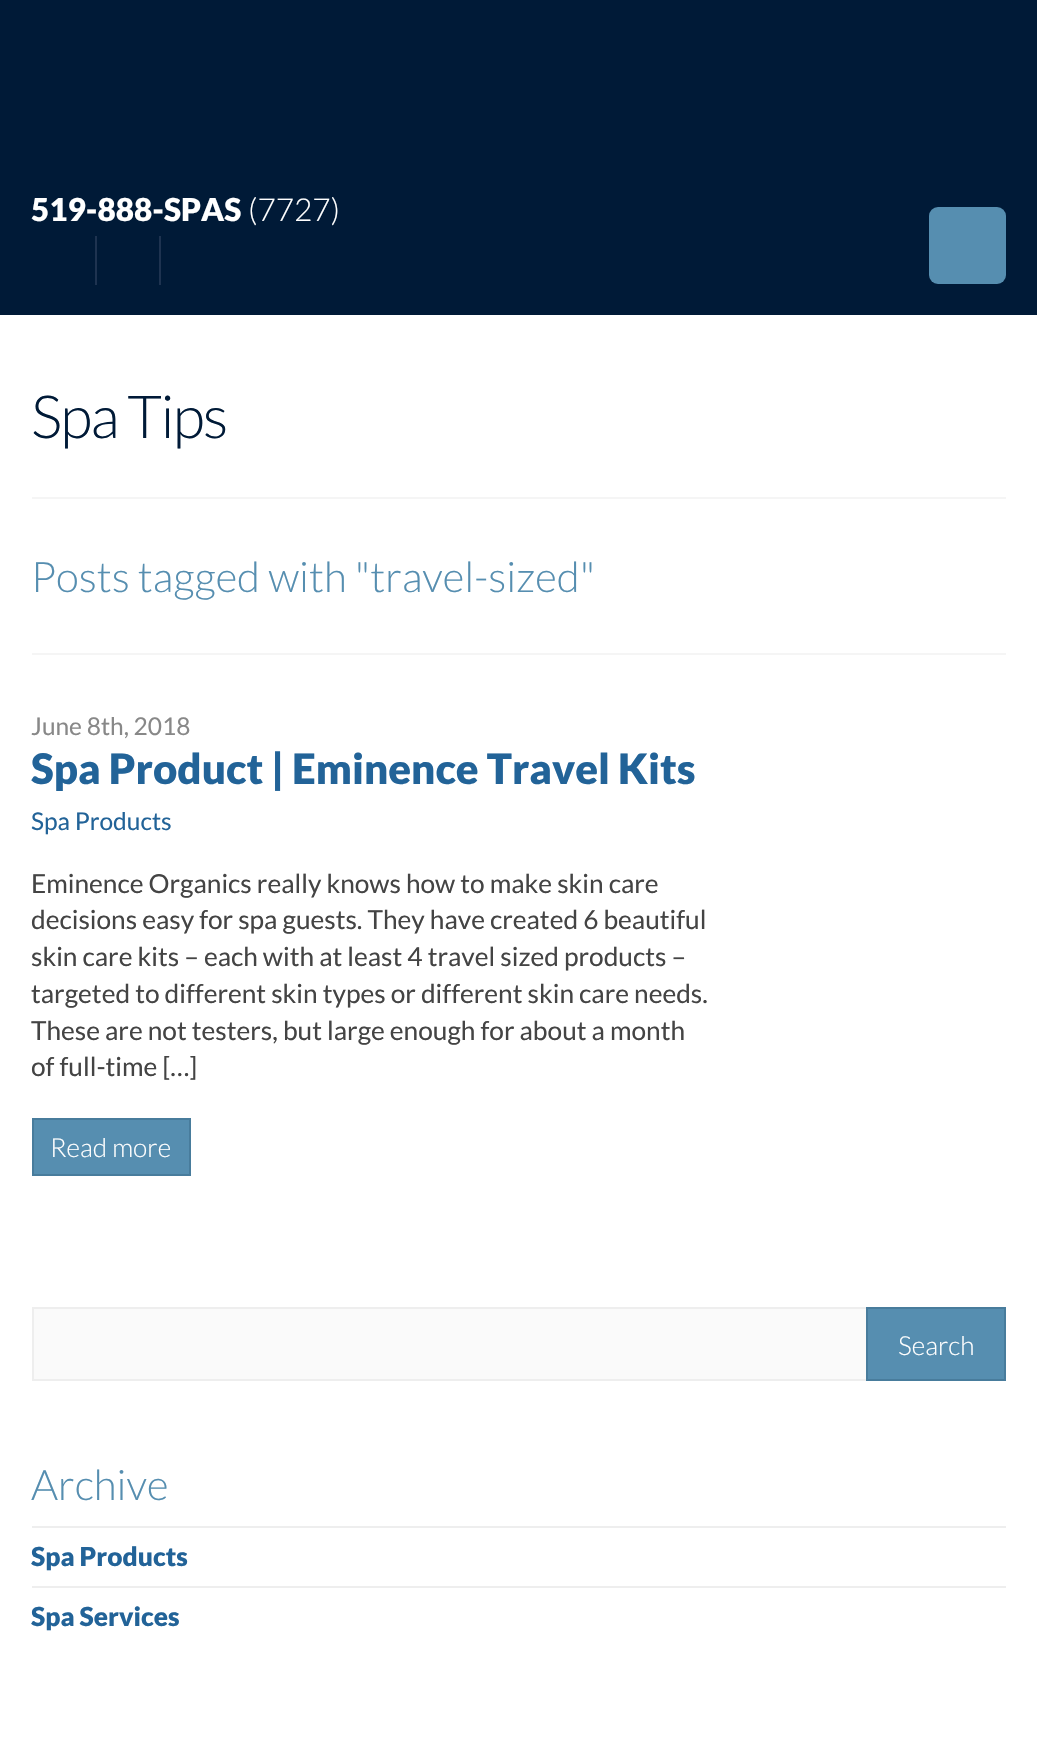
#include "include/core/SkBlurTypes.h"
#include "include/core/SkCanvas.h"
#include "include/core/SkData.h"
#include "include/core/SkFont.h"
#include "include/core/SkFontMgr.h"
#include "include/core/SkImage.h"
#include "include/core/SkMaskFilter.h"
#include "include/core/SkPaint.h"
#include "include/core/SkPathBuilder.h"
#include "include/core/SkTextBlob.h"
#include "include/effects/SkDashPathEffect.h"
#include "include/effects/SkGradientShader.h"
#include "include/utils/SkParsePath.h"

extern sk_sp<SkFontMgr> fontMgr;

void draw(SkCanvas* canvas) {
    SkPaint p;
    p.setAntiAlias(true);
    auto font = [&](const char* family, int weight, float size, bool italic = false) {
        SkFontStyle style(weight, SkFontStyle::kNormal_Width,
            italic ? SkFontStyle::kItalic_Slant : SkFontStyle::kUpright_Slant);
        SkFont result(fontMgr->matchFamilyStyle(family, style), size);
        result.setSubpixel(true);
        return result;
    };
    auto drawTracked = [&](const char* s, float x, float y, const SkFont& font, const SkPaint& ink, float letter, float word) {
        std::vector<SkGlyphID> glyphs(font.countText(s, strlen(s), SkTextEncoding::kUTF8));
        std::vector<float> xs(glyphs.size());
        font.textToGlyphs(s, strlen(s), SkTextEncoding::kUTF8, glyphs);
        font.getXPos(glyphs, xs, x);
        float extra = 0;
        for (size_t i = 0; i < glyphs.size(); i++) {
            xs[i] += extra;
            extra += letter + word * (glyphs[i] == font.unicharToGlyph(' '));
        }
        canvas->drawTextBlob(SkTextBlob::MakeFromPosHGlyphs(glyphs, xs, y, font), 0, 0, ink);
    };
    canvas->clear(0xFFFFFFFF);
    p.setColor(0xFF001A37);
    canvas->drawRect(SkRect::MakeLTRB(0, 0, 1037, 315), p);
    auto font1 = font("Lato", 900, 31.5f);
    p.setColor(0xFFFFFFFF);
    canvas->drawString("519-888-SPAS", 31, 221, font1, p);
    auto font2 = font("Lato", 300, 31.5f);
    canvas->drawString("(7727)", 248, 221, font2, p);
    p.setColor(0xFF568EB0);
    canvas->drawRoundRect(SkRect::MakeLTRB(929, 207, 1006, 284), 9, 9, p);
    {
        const struct { float l, t, r, b; SkColor color; } items[] = {
            {95, 236, 97, 285, 0xFF1E3350},
            {159, 236, 161, 285, 0xFF1E3350},
            {32, 497, 1006, 499, 0xFFF5F5F5},
        };
        for (auto [l, t, r, b, color] : items) {
            p.setColor(color);
            canvas->drawRect(SkRect::MakeLTRB(l, t, r, b), p);
        }
    }
    auto font3 = font("Lato", 300, 59.5f);
    p.setColor(0xFF001A37);
    drawTracked("Spa Tips", 31, 438, font3, p, -1.75f, 0);
    p.setColor(0xFFF5F5F5);
    canvas->drawRect(SkRect::MakeLTRB(32, 653, 1006, 655), p);
    auto font4 = font("Lato", 300, 42);
    p.setColor(0xFF568EB0);
    canvas->drawString("Posts tagged with \"travel-sized\"", 31, 592, font4, p);
    auto font5 = font("Lato", 400, 24.5f);
    p.setColor(0xFF888888);
    canvas->drawString("June 8th, 2018", 31, 735, font5, p);
    auto font6 = font("Lato", 900, 42);
    p.setColor(0xFF226398);
    canvas->drawString("Spa Product | Eminence Travel Kits", 31, 784, font6, p);
    canvas->drawString("Spa Products", 31, 830, font5, p);
    auto font7 = font("Lato", 400, 26.25f);
    p.setColor(0xFF444444);
    {
        const struct { const char* s; float x, y; } items[] = {
            {"Eminence Organics really knows how to make skin care", 31, 893},
            {"decisions easy for spa guests. They have created 6 beautiful", 31, 929},
            {"skin care kits – each with at least 4 travel sized products –", 31, 966},
            {"targeted to different skin types or different skin care needs.", 31, 1003},
            {"These are not testers, but large enough for about a month", 31, 1040},
            {"of full-time […]", 31, 1076},
        };
        for (auto [s, x, y] : items) {
            canvas->drawString(s, x, y, font7, p);
        }
    }
    p.setColor(0xFF568EB0);
    canvas->drawRect(SkRect::MakeLTRB(33, 1119, 190, 1175), p);
    p.setStyle(SkPaint::kStroke_Style);
    p.setStrokeWidth(2);
    p.setColor(0xFF487C9C);
    canvas->drawRect(SkRect::MakeLTRB(33, 1119, 190, 1175), p);
    auto font8 = font("Lato", 300, 26.25f);
    p.setStyle(SkPaint::kFill_Style);
    p.setColor(0xFFFFFFFF);
    canvas->drawString("Read more", 50, 1157, font8, p);
    p.setColor(0xFFFAFAFA);
    canvas->drawRect(SkRect::MakeLTRB(34, 1309, 866, 1379), p);
    p.setStyle(SkPaint::kStroke_Style);
    p.setColor(0xFFEEEEEE);
    canvas->drawRect(SkRect::MakeLTRB(33, 1308, 1005, 1380), p);
    p.setStyle(SkPaint::kFill_Style);
    p.setColor(0xFF568EB0);
    canvas->drawRect(SkRect::MakeLTRB(867, 1308, 1005, 1380), p);
    p.setStyle(SkPaint::kStroke_Style);
    p.setColor(0xFF487C9C);
    canvas->drawRect(SkRect::MakeLTRB(867, 1308, 1005, 1380), p);
    p.setStyle(SkPaint::kFill_Style);
    p.setColor(0xFFFFFFFF);
    canvas->drawString("Search", 898, 1355, font8, p);
    p.setColor(0xFF568EB0);
    canvas->drawString("Archive", 31, 1500, font4, p);
    p.setColor(0xFFEEEEEE);
    canvas->drawRect(SkRect::MakeLTRB(32, 1526, 1006, 1528), p);
    auto font9 = font("Lato", 900, 26.25f);
    p.setColor(0xFF226398);
    canvas->drawString("Spa Products", 31, 1566, font9, p);
    p.setColor(0xFFEEEEEE);
    canvas->drawRect(SkRect::MakeLTRB(32, 1586, 1006, 1588), p);
    p.setColor(0xFF226398);
    canvas->drawString("Spa Services", 31, 1626, font9, p);
}
